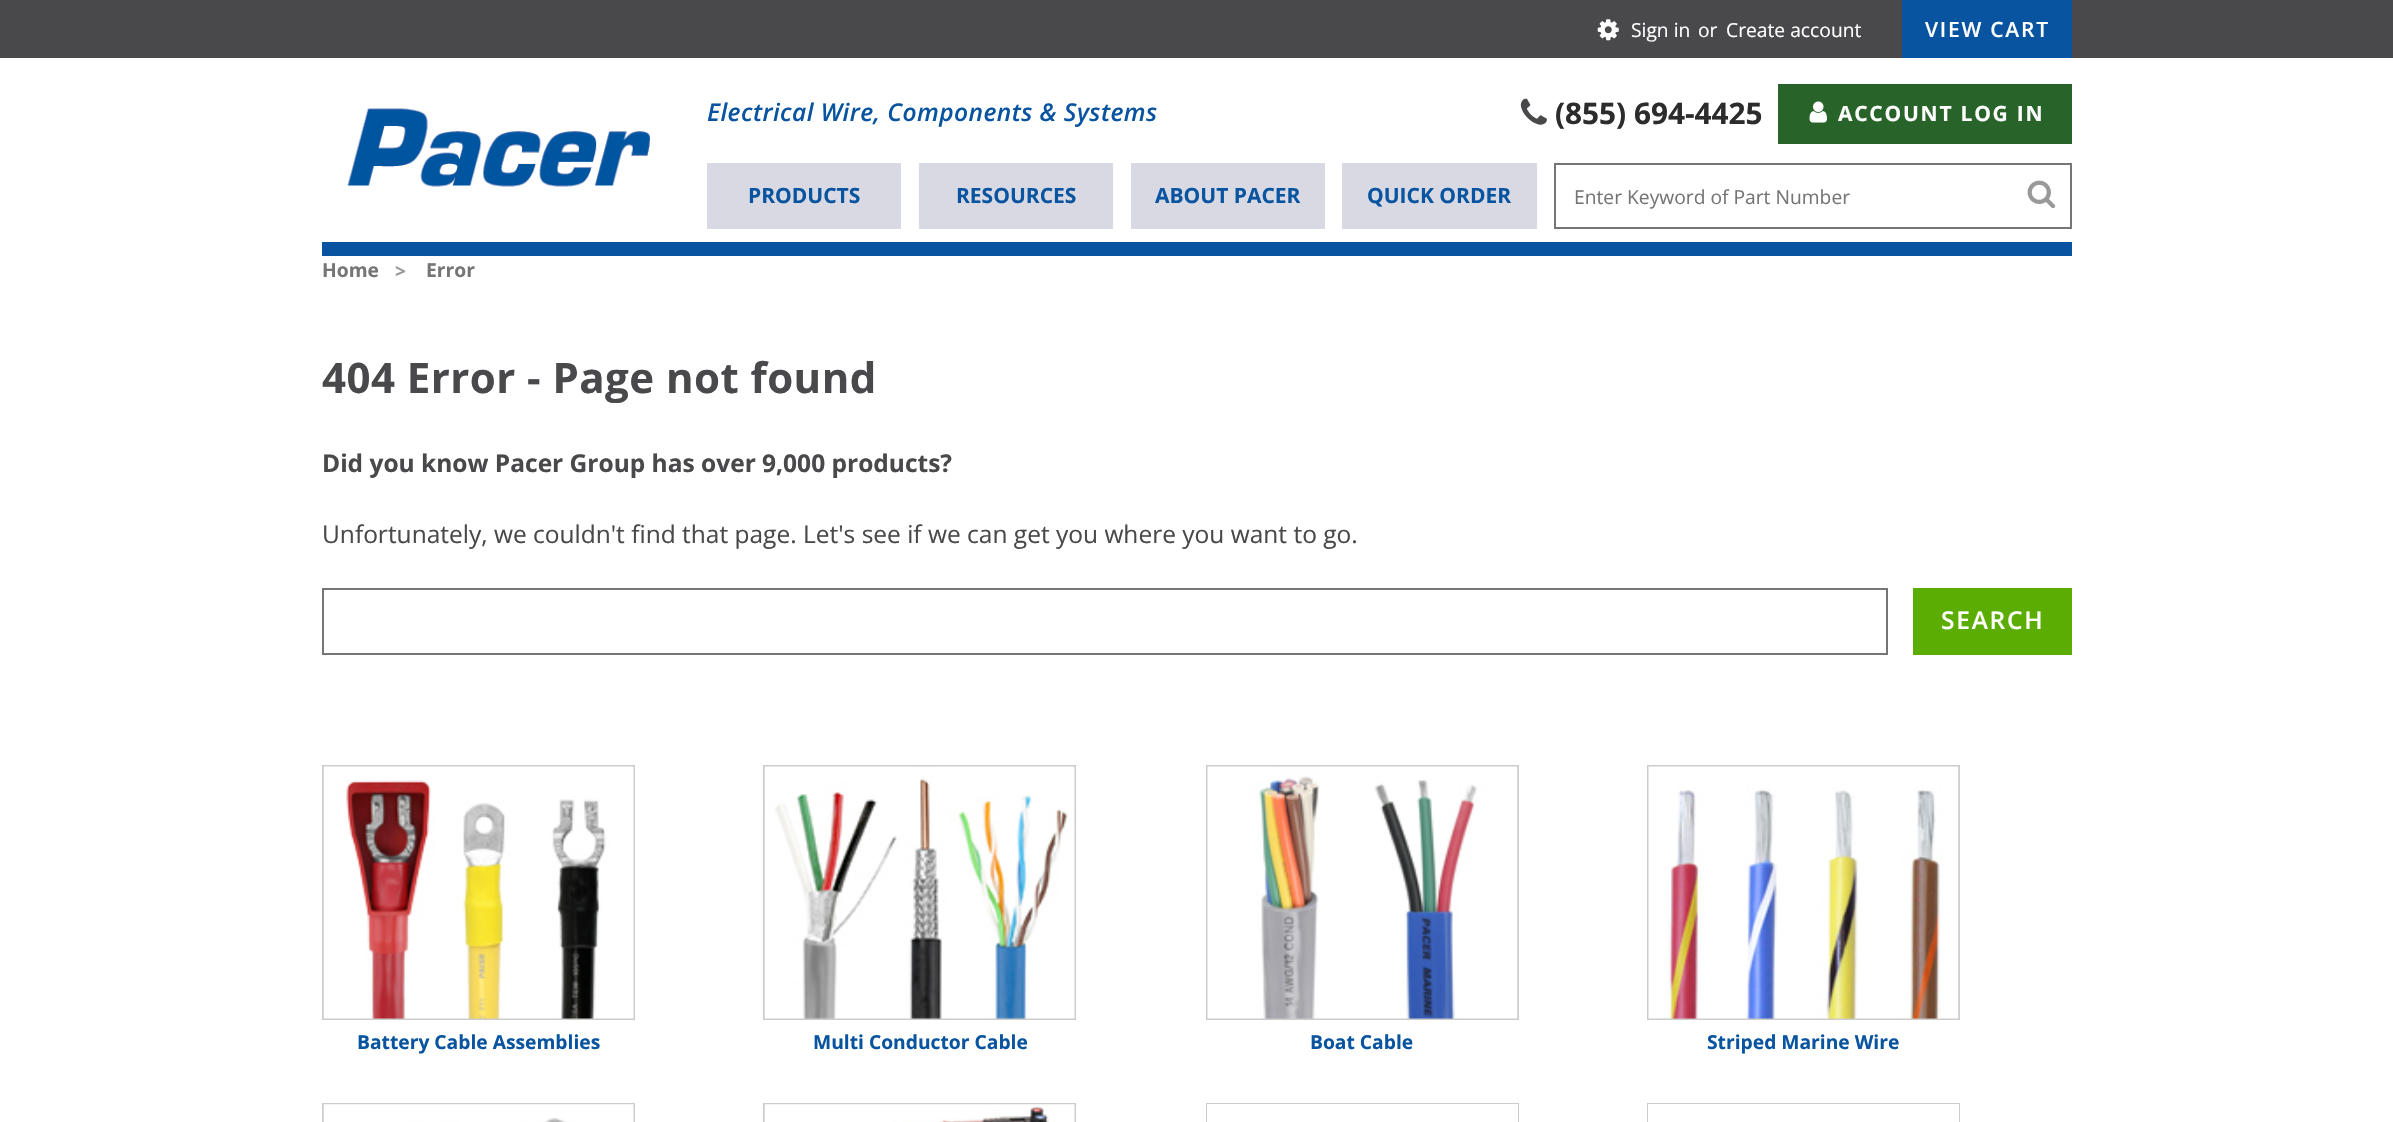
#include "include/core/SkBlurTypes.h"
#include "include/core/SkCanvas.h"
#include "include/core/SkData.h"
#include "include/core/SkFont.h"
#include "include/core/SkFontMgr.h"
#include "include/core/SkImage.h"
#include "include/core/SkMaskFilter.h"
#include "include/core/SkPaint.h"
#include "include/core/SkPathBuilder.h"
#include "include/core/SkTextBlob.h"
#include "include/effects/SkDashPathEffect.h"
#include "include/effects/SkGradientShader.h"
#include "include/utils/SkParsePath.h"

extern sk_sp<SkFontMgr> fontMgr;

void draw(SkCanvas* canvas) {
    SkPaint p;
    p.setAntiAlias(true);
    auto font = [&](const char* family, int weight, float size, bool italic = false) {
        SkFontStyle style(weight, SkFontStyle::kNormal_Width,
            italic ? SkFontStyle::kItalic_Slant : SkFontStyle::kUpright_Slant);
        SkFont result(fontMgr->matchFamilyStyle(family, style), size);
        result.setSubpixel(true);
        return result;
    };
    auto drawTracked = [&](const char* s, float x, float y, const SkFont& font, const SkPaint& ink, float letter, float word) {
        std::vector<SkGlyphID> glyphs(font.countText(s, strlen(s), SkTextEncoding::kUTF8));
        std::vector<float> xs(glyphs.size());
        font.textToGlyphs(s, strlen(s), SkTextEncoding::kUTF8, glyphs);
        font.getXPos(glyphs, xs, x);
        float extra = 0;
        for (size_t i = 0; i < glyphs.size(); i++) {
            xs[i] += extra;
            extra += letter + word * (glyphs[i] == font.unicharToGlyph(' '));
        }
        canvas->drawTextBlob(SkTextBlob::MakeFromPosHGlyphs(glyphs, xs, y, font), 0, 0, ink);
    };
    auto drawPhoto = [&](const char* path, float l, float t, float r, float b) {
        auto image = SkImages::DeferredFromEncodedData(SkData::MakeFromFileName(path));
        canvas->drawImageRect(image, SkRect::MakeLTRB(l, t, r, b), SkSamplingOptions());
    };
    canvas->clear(0xFFFFFFFF);
    p.setColor(0xFF49494B);
    canvas->drawRect(SkRect::MakeLTRB(0, 0, 2393, 58), p);
    drawPhoto("media/1.png", 1597, 19, 1619, 41);
    auto font1 = font("Open Sans", 400, 19.25f);
    p.setColor(0xFFFFFFFF);
    {
        const struct { const char* s; float x, y; } items[] = {
            {"Sign in", 1631, 37},
            {"or", 1698, 37},
            {"Create account", 1726, 37},
        };
        for (auto [s, x, y] : items) {
            canvas->drawString(s, x, y, font1, p);
        }
    }
    p.setColor(0xFF0854A0);
    canvas->drawRect(SkRect::MakeLTRB(1902, 0, 2072, 58), p);
    auto font2 = font("Open Sans", 600, 21);
    p.setColor(0xFFFFFFFF);
    drawTracked("VIEW CART", 1925, 37, font2, p, 1.75f, 0);
    p.setColor(0xFF0854A0);
    canvas->drawRect(SkRect::MakeLTRB(322, 242, 2072, 256), p);
    drawPhoto("media/2.png", 347, 108, 650, 187);
    auto font3 = font("Open Sans", 600, 24.5f, true);
    drawTracked("Electrical Wire, Components & Systems", 707, 121, font3, p, 0.45f, 0);
    drawPhoto("media/3.png", 1520, 98, 1547, 125);
    auto font4 = font("Open Sans", 700, 29.75f);
    p.setColor(0xFF2C2C2C);
    canvas->drawString("(855) 694-4425", 1555, 124, font4, p);
    p.setColor(0xFF28642A);
    canvas->drawRect(SkRect::MakeLTRB(1778, 84, 2072, 144), p);
    drawPhoto("media/4.png", 1809, 101, 1827, 123);
    auto font5 = font("Open Sans", 700, 21);
    p.setColor(0xFFFFFFFF);
    drawTracked("ACCOUNT LOG IN", 1838, 121, font5, p, 1.75f, 0);
    p.setColor(0xFFD9D9E3);
    canvas->drawRect(SkRect::MakeLTRB(707, 163, 901, 229), p);
    p.setColor(0xFF0854A0);
    canvas->drawString("PRODUCTS", 748, 203, font5, p);
    p.setColor(0xFFD9D9E3);
    canvas->drawRect(SkRect::MakeLTRB(919, 163, 1113, 229), p);
    p.setColor(0xFF0854A0);
    canvas->drawString("RESOURCES", 956, 203, font5, p);
    p.setColor(0xFFD9D9E3);
    canvas->drawRect(SkRect::MakeLTRB(1131, 163, 1325, 229), p);
    p.setColor(0xFF0854A0);
    canvas->drawString("ABOUT PACER", 1155, 203, font5, p);
    p.setColor(0xFFD9D9E3);
    canvas->drawRect(SkRect::MakeLTRB(1342, 163, 1537, 229), p);
    p.setColor(0xFF0854A0);
    canvas->drawString("QUICK ORDER", 1367, 203, font5, p);
    p.setStyle(SkPaint::kStroke_Style);
    p.setStrokeWidth(2);
    p.setColor(0xFF757575);
    canvas->drawRect(SkRect::MakeLTRB(1555, 164, 2071, 228), p);
    p.setStyle(SkPaint::kFill_Style);
    canvas->drawString("Enter Keyword of Part Number", 1574, 204, font1, p);
    drawPhoto("media/5.png", 2027, 180, 2056, 208);
    auto font6 = font("Open Sans", 700, 19.25f);
    canvas->drawString("Home", 322, 277, font6, p);
    p.setColor(0xFF999999);
    canvas->drawString(">", 395, 278, font6, p);
    p.setColor(0xFF757575);
    canvas->drawString("Error", 426, 277, font6, p);
    auto font7 = font("Open Sans", 700, 42);
    p.setColor(0xFF49494B);
    drawTracked("404 Error - Page not found", 322, 393, font7, p, 0.45f, 0);
    auto font8 = font("Open Sans", 700, 24.5f);
    canvas->drawString("Did you know Pacer Group has over 9,000 products?", 322, 472, font8, p);
    auto font9 = font("Open Sans", 400, 24.5f);
    canvas->drawString("Unfortunately, we couldn't find that page. Let's see if we can get you where you want to go.", 322, 543, font9, p);
    p.setStyle(SkPaint::kStroke_Style);
    p.setColor(0xFF757575);
    canvas->drawRect(SkRect::MakeLTRB(323, 589, 1887, 654), p);
    p.setStyle(SkPaint::kFill_Style);
    p.setColor(0xFF5BAD03);
    canvas->drawRect(SkRect::MakeLTRB(1913, 588, 2072, 655), p);
    auto font10 = font("Open Sans", 600, 24.5f);
    p.setColor(0xFFFFFFFF);
    drawTracked("SEARCH", 1941, 629, font10, p, 1.75f, 0);
    p.setStyle(SkPaint::kStroke_Style);
    p.setColor(0xFFCCCCCB);
    canvas->drawRect(SkRect::MakeLTRB(323, 766, 634, 1019), p);
    drawPhoto("media/6.png", 323, 766, 634, 1019);
    p.setStyle(SkPaint::kFill_Style);
    p.setColor(0xFF0854A0);
    canvas->drawString("Battery Cable Assemblies", 357, 1049, font6, p);
    p.setStyle(SkPaint::kStroke_Style);
    p.setColor(0xFFCCCCCB);
    canvas->drawRect(SkRect::MakeLTRB(764, 766, 1075, 1019), p);
    drawPhoto("media/7.png", 764, 766, 1075, 1019);
    p.setStyle(SkPaint::kFill_Style);
    p.setColor(0xFF0854A0);
    canvas->drawString("Multi Conductor Cable", 813, 1049, font6, p);
    p.setStyle(SkPaint::kStroke_Style);
    p.setColor(0xFFCCCCCB);
    canvas->drawRect(SkRect::MakeLTRB(1207, 766, 1518, 1019), p);
    drawPhoto("media/8.png", 1207, 766, 1518, 1019);
    p.setStyle(SkPaint::kFill_Style);
    p.setColor(0xFF0854A0);
    canvas->drawString("Boat Cable", 1310, 1049, font6, p);
    p.setStyle(SkPaint::kStroke_Style);
    p.setColor(0xFFCCCCCB);
    canvas->drawRect(SkRect::MakeLTRB(1648, 766, 1959, 1019), p);
    drawPhoto("media/9.png", 1648, 766, 1959, 1019);
    p.setStyle(SkPaint::kFill_Style);
    p.setColor(0xFF0854A0);
    canvas->drawString("Striped Marine Wire", 1707, 1049, font6, p);
    p.setStyle(SkPaint::kStroke_Style);
    p.setColor(0xFFCCCCCB);
    canvas->drawRect(SkRect::MakeLTRB(323, 1104, 634, 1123), p);
    drawPhoto("media/10.png", 323, 1104, 634, 1122);
    canvas->drawRect(SkRect::MakeLTRB(764, 1104, 1075, 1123), p);
    drawPhoto("media/11.png", 764, 1104, 1075, 1122);
    canvas->drawRect(SkRect::MakeLTRB(1207, 1104, 1518, 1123), p);
    p.setStyle(SkPaint::kFill_Style);
    p.setColor(0xFFFFFFFF);
    canvas->drawRect(SkRect::MakeLTRB(1207, 1104, 1518, 1122), p);
    p.setStyle(SkPaint::kStroke_Style);
    p.setColor(0xFFCCCCCB);
    canvas->drawRect(SkRect::MakeLTRB(1648, 1104, 1959, 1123), p);
    p.setStyle(SkPaint::kFill_Style);
    p.setColor(0xFFFFFFFF);
    canvas->drawRect(SkRect::MakeLTRB(1648, 1104, 1959, 1122), p);
}
